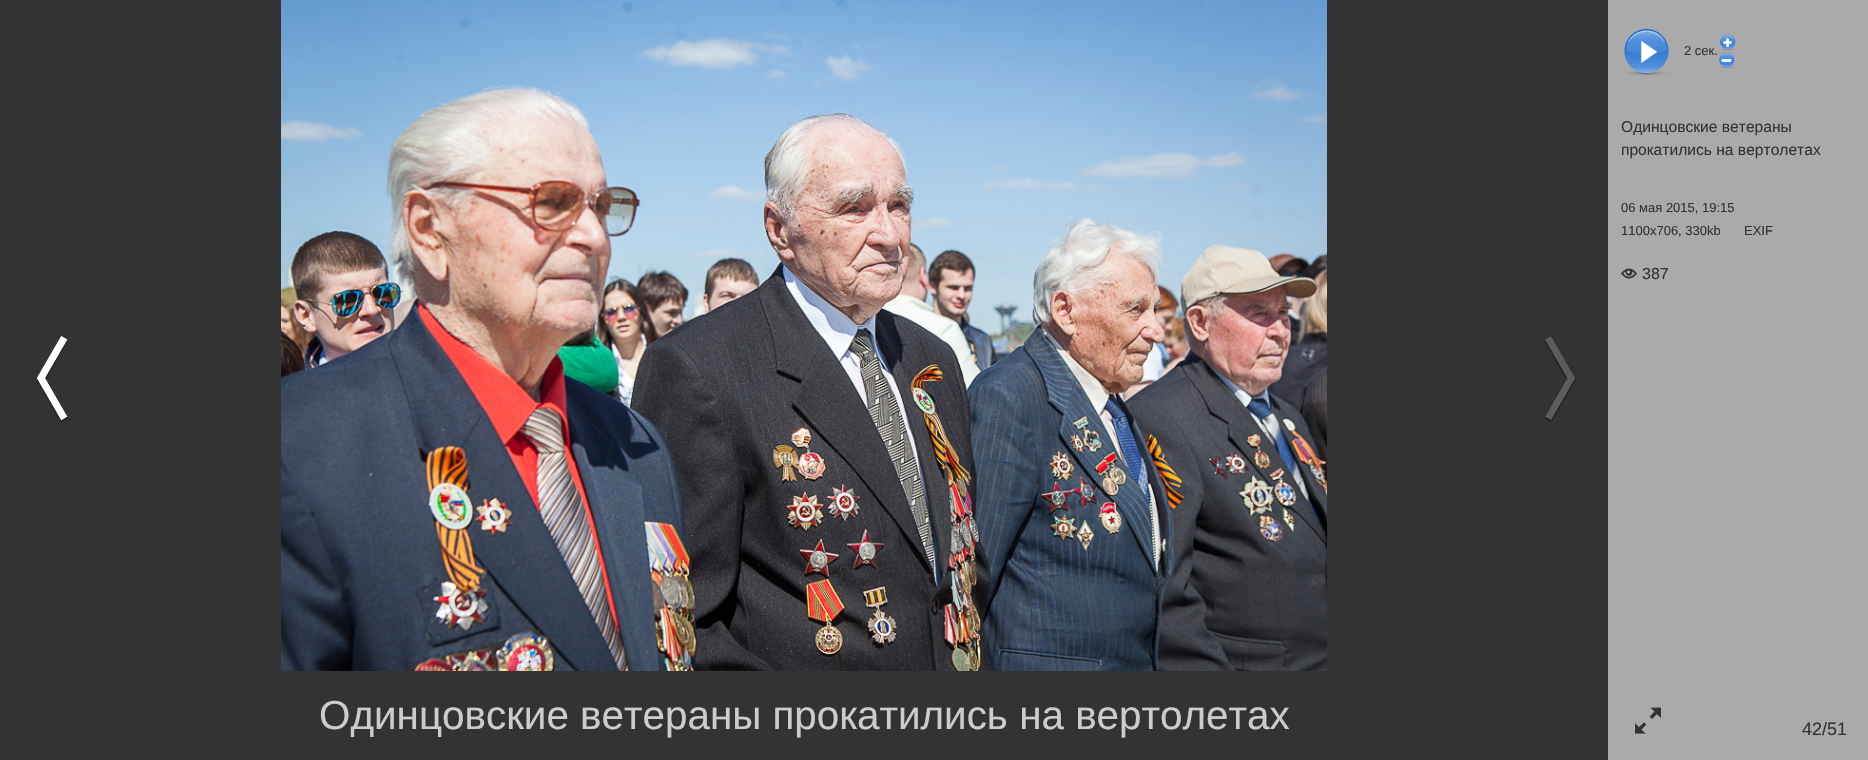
#include "include/core/SkBlurTypes.h"
#include "include/core/SkCanvas.h"
#include "include/core/SkData.h"
#include "include/core/SkFont.h"
#include "include/core/SkFontMgr.h"
#include "include/core/SkImage.h"
#include "include/core/SkMaskFilter.h"
#include "include/core/SkPaint.h"
#include "include/core/SkPathBuilder.h"
#include "include/core/SkTextBlob.h"
#include "include/effects/SkDashPathEffect.h"
#include "include/effects/SkGradientShader.h"
#include "include/utils/SkParsePath.h"

extern sk_sp<SkFontMgr> fontMgr;

void draw(SkCanvas* canvas) {
    SkPaint p;
    p.setAntiAlias(true);
    auto font = [&](const char* family, int weight, float size, bool italic = false) {
        SkFontStyle style(weight, SkFontStyle::kNormal_Width,
            italic ? SkFontStyle::kItalic_Slant : SkFontStyle::kUpright_Slant);
        SkFont result(fontMgr->matchFamilyStyle(family, style), size);
        result.setSubpixel(true);
        return result;
    };
    auto drawPhoto = [&](const char* path, float l, float t, float r, float b) {
        auto image = SkImages::DeferredFromEncodedData(SkData::MakeFromFileName(path));
        canvas->drawImageRect(image, SkRect::MakeLTRB(l, t, r, b), SkSamplingOptions());
    };
    canvas->clear(0xFF333333);
    drawPhoto("media/1.png", 36, 336, 68, 422);
    drawPhoto("media/2.png", 281, 0, 1327, 671);
    drawPhoto("media/3.png", 1544, 336, 1576, 422);
    auto font1 = font("Liberation Sans", 400, 40.4f);
    p.setColor(0xFFCCCCCC);
    canvas->drawString("Одинцовские ветераны прокатились на вертолетах", 319, 729, font1, p);
    p.setColor(0xFFAAAAAA);
    canvas->drawRect(SkRect::MakeLTRB(1608, 0, 1868, 760), p);
    drawPhoto("media/4.png", 1624, 29, 1669, 76);
    auto font2 = font("Liberation Sans", 400, 13);
    p.setColor(0xFF333333);
    canvas->drawString("2 сек.", 1684, 55, font2, p);
    drawPhoto("media/5.png", 1720, 34, 1735, 50);
    drawPhoto("media/6.png", 1719, 52, 1735, 68);
    auto font3 = font("Liberation Sans", 400, 15.6f);
    canvas->drawString("Одинцовские ветераны", 1621, 132, font3, p);
    canvas->drawString("прокатились на вертолетах", 1621, 155, font3, p);
    {
        const struct { const char* s; float x, y; } items[] = {
            {"06 мая 2015, 19:15", 1621, 212},
            {"1100x706, 330kb", 1621, 235},
            {"EXIF", 1744, 235},
        };
        for (auto [s, x, y] : items) {
            canvas->drawString(s, x, y, font2, p);
        }
    }
    drawPhoto("media/7.png", 1621, 268, 1637, 279);
    auto font4 = font("Liberation Sans", 400, 16);
    canvas->drawString("387", 1642, 279, font4, p);
    drawPhoto("media/8.png", 1635, 707, 1661, 734);
    auto font5 = font("Liberation Sans", 400, 18);
    canvas->drawString("42/51", 1802, 735, font5, p);
}
